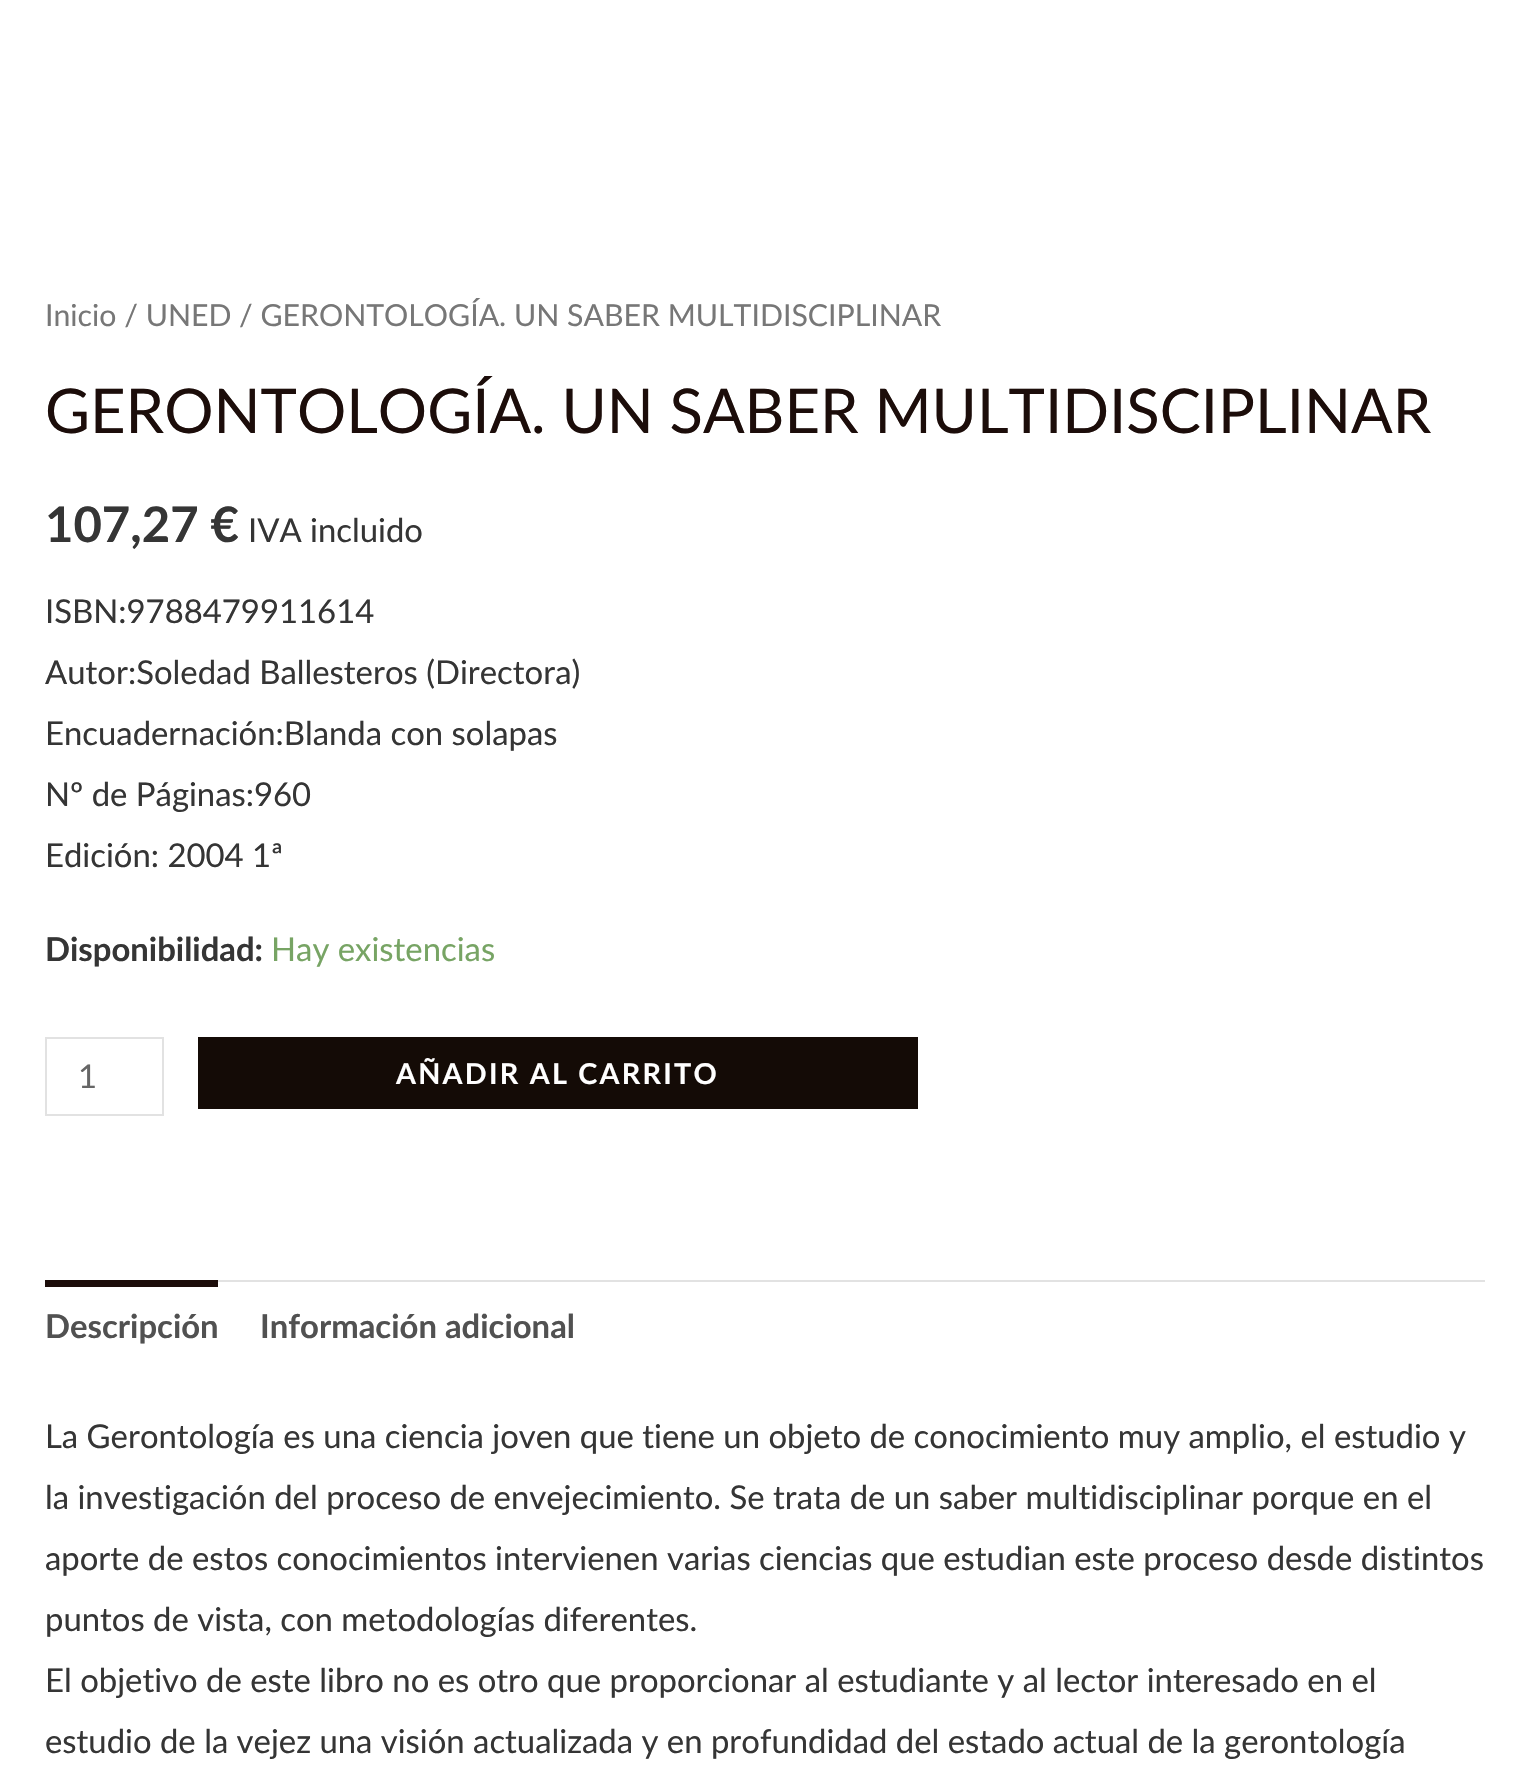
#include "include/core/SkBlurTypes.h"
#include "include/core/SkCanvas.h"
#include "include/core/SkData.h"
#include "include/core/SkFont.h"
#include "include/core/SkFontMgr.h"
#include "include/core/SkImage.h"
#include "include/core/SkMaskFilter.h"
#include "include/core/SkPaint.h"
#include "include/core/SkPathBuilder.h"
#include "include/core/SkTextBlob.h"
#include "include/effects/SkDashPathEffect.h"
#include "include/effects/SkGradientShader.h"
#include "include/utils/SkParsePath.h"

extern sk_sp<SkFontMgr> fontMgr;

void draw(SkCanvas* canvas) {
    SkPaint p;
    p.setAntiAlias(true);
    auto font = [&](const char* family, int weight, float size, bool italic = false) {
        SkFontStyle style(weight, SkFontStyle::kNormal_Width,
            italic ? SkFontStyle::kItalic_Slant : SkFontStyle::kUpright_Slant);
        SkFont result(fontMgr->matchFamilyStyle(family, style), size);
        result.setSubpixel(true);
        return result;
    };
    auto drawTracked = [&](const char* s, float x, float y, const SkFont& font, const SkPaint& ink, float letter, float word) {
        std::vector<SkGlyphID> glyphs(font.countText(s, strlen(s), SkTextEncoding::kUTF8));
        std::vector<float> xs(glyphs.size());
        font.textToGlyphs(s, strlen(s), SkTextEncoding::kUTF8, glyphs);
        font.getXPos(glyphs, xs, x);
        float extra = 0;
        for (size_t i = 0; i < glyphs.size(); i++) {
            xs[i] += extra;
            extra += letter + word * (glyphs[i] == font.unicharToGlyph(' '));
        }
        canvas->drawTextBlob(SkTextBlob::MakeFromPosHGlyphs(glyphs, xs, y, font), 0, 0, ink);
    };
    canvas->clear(0xFFFFFFFF);
    auto font1 = font("Lato", 400, 30.25f);
    p.setColor(0xFF777777);
    canvas->drawString("Inicio / UNED", 45, 326, font1, p);
    canvas->drawString("/ GERONTOLOGÍA. UN SABER MULTIDISCIPLINAR", 239, 326, font1, p);
    auto font2 = font("Lato", 400, 61.6f);
    p.setColor(0xFF1C0D0A);
    canvas->drawString("GERONTOLOGÍA. UN SABER MULTIDISCIPLINAR", 45, 433, font2, p);
    auto font3 = font("Lato", 700, 49);
    p.setColor(0xFF353535);
    canvas->drawString("107,27 €", 45, 542, font3, p);
    auto font4 = font("Lato", 400, 32.85f);
    {
        const struct { const char* s; float x, y; } items[] = {
            {"IVA incluido", 248, 542},
            {"ISBN:9788479911614", 45, 623},
            {"Autor:Soledad Ballesteros (Directora)", 45, 684},
            {"Encuadernación:Blanda con solapas", 45, 745},
            {"Nº de Páginas:960", 45, 806},
            {"Edición: 2004 1ª", 45, 867},
        };
        for (auto [s, x, y] : items) {
            canvas->drawString(s, x, y, font4, p);
        }
    }
    auto font5 = font("Lato", 700, 32.85f);
    canvas->drawString("Disponibilidad:", 45, 961, font5, p);
    p.setColor(0xFF77A464);
    canvas->drawString("Hay existencias", 271, 961, font4, p);
    p.setStyle(SkPaint::kStroke_Style);
    p.setStrokeWidth(2);
    p.setColor(0xFFE2E2E2);
    canvas->drawRect(SkRect::MakeLTRB(46, 1038, 163, 1115), p);
    p.setStyle(SkPaint::kFill_Style);
    p.setColor(0xFF666666);
    canvas->drawString("1", 78, 1088, font4, p);
    p.setColor(0xFF140B06);
    canvas->drawRect(SkRect::MakeLTRB(198, 1037, 918, 1109), p);
    auto font6 = font("Lato", 700, 28.75f);
    p.setColor(0xFFFFFFFF);
    drawTracked("AÑADIR AL CARRITO", 396, 1084, font6, p, 2.25f, 0);
    p.setColor(0xFFE2E2E2);
    canvas->drawRect(SkRect::MakeLTRB(218, 1280, 1485, 1282), p);
    p.setColor(0xFF1C0D0A);
    canvas->drawRect(SkRect::MakeLTRB(45, 1280, 218, 1287), p);
    p.setColor(0xFF515151);
    canvas->drawString("Descripción", 45, 1338, font5, p);
    canvas->drawString("Información adicional", 260, 1338, font5, p);
    p.setColor(0xFF353535);
    {
        const struct { const char* s; float x, y; } items[] = {
            {"La Gerontología es una ciencia joven que tiene un objeto de conocimiento muy amplio, el estudio y", 45, 1448},
            {"la investigación del proceso de envejecimiento. Se trata de un saber multidisciplinar porque en el", 45, 1509},
            {"aporte de estos conocimientos intervienen varias ciencias que estudian este proceso desde distintos", 45, 1570},
            {"puntos de vista, con metodologías diferentes.", 45, 1631},
            {"El objetivo de este libro no es otro que proporcionar al estudiante y al lector interesado en el", 45, 1692},
            {"estudio de la vejez una visión actualizada y en profundidad del estado actual de la gerontología", 45, 1753},
        };
        for (auto [s, x, y] : items) {
            canvas->drawString(s, x, y, font4, p);
        }
    }
}
